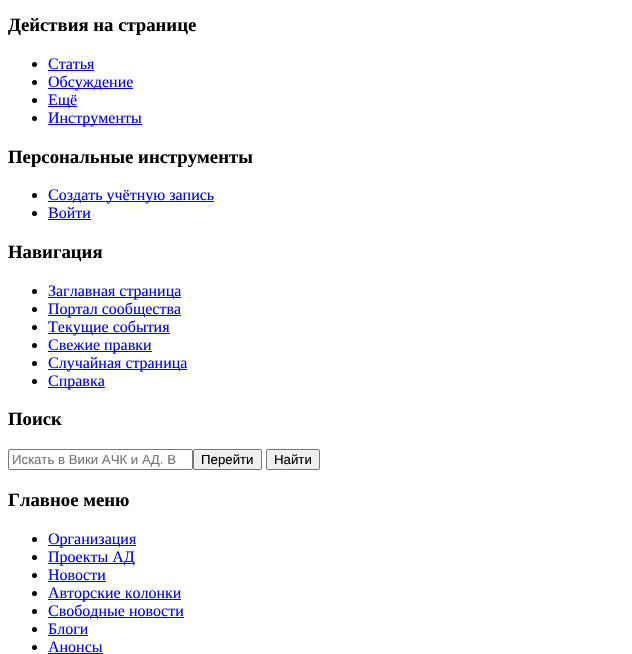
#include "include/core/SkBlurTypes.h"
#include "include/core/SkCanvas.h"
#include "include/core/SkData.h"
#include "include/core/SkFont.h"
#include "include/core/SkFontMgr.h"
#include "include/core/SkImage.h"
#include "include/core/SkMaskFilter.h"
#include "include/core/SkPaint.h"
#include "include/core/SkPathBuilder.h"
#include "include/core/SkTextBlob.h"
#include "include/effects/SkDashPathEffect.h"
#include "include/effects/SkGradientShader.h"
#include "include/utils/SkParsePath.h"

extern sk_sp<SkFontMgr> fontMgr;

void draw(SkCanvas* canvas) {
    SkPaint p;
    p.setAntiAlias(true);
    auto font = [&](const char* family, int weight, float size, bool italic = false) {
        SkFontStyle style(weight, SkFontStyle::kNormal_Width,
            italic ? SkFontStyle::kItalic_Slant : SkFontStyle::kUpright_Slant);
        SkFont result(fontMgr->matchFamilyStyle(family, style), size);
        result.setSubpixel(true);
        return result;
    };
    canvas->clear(0xFFFFFFFF);
    auto font1 = font("Liberation Serif", 700, 18.75f);
    p.setColor(0xFF000000);
    canvas->drawString("Действия на странице", 8, 31, font1, p);
    canvas->drawCircle(34.5f, 64.5f, 2.5f, p);
    auto font2 = font("Liberation Serif", 400, 16);
    p.setColor(0xFF0000EE);
    canvas->drawString("Статья", 48, 69, font2, p);
    canvas->drawRect(SkRect::MakeLTRB(48, 70, 94, 71), p);
    p.setColor(0xFF000000);
    canvas->drawCircle(34.5f, 82.5f, 2.5f, p);
    p.setColor(0xFF0000EE);
    canvas->drawRect(SkRect::MakeLTRB(48, 88, 133, 89), p);
    canvas->drawString("Обсуждение", 48, 87, font2, p);
    p.setColor(0xFF000000);
    canvas->drawCircle(34.5f, 100.5f, 2.5f, p);
    p.setColor(0xFF0000EE);
    canvas->drawRect(SkRect::MakeLTRB(48, 106, 77, 107), p);
    canvas->drawString("Ещё", 48, 105, font2, p);
    p.setColor(0xFF000000);
    canvas->drawCircle(34.5f, 118.5f, 2.5f, p);
    p.setColor(0xFF0000EE);
    canvas->drawRect(SkRect::MakeLTRB(48, 124, 142, 125), p);
    canvas->drawString("Инструменты", 48, 123, font2, p);
    p.setColor(0xFF000000);
    canvas->drawString("Персональные инструменты", 8, 163, font1, p);
    canvas->drawCircle(34.5f, 195.5f, 2.5f, p);
    p.setColor(0xFF0000EE);
    canvas->drawRect(SkRect::MakeLTRB(48, 201, 214, 202), p);
    canvas->drawString("Создать учётную запись", 48, 200, font2, p);
    p.setColor(0xFF000000);
    canvas->drawCircle(34.5f, 213.5f, 2.5f, p);
    p.setColor(0xFF0000EE);
    canvas->drawString("Войти", 48, 218, font2, p);
    canvas->drawRect(SkRect::MakeLTRB(48, 219, 91, 220), p);
    p.setColor(0xFF000000);
    canvas->drawString("Навигация", 8, 258, font1, p);
    canvas->drawCircle(34.5f, 291.5f, 2.5f, p);
    p.setColor(0xFF0000EE);
    canvas->drawRect(SkRect::MakeLTRB(48, 297, 181, 298), p);
    canvas->drawString("Заглавная страница", 48, 296, font2, p);
    p.setColor(0xFF000000);
    canvas->drawCircle(34.5f, 309.5f, 2.5f, p);
    p.setColor(0xFF0000EE);
    canvas->drawRect(SkRect::MakeLTRB(48, 315, 181, 316), p);
    canvas->drawString("Портал сообщества", 48, 314, font2, p);
    p.setColor(0xFF000000);
    canvas->drawCircle(34.5f, 327.5f, 2.5f, p);
    p.setColor(0xFF0000EE);
    canvas->drawRect(SkRect::MakeLTRB(48, 333, 170, 334), p);
    canvas->drawString("Текущие события", 48, 332, font2, p);
    p.setColor(0xFF000000);
    canvas->drawCircle(34.5f, 345.5f, 2.5f, p);
    p.setColor(0xFF0000EE);
    canvas->drawRect(SkRect::MakeLTRB(48, 351, 152, 352), p);
    canvas->drawString("Свежие правки", 48, 350, font2, p);
    p.setColor(0xFF000000);
    canvas->drawCircle(34.5f, 363.5f, 2.5f, p);
    p.setColor(0xFF0000EE);
    canvas->drawRect(SkRect::MakeLTRB(48, 369, 187, 370), p);
    canvas->drawString("Случайная страница", 48, 368, font2, p);
    p.setColor(0xFF000000);
    canvas->drawCircle(34.5f, 381.5f, 2.5f, p);
    p.setColor(0xFF0000EE);
    canvas->drawRect(SkRect::MakeLTRB(48, 387, 105, 388), p);
    canvas->drawString("Справка", 48, 386, font2, p);
    p.setColor(0xFF000000);
    canvas->drawString("Поиск", 8, 425, font1, p);
    p.setStyle(SkPaint::kStroke_Style);
    p.setStrokeWidth(1);
    p.setColor(0xFF767676);
    canvas->drawRoundRect(SkRect::MakeLTRB(8.5f, 449.5f, 192.5f, 469.5f), 1.5f, 1.5f, p);
    canvas->save();
    canvas->clipRect(SkRect::MakeLTRB(12, 452, 176, 467));
    auto font3 = font("Liberation Sans", 400, 13.25f);
    p.setStyle(SkPaint::kFill_Style);
    p.setColor(0xFF757575);
    canvas->drawString("Искать в Вики АЧК и АД. В", 12, 464, font3, p);
    canvas->restore();
    p.setColor(0xFFEFEFEF);
    canvas->drawRoundRect(SkRect::MakeLTRB(193.5f, 449.5f, 261.5f, 469.5f), 1.5f, 1.5f, p);
    p.setStyle(SkPaint::kStroke_Style);
    p.setColor(0xFF767676);
    canvas->drawRoundRect(SkRect::MakeLTRB(193.5f, 449.5f, 261.5f, 469.5f), 1.5f, 1.5f, p);
    p.setStyle(SkPaint::kFill_Style);
    p.setColor(0xFF000000);
    canvas->drawString("Перейти", 201, 464, font3, p);
    p.setColor(0xFFEFEFEF);
    canvas->drawRoundRect(SkRect::MakeLTRB(266.5f, 449.5f, 319.5f, 469.5f), 1.5f, 1.5f, p);
    p.setStyle(SkPaint::kStroke_Style);
    p.setColor(0xFF767676);
    canvas->drawRoundRect(SkRect::MakeLTRB(266.5f, 449.5f, 319.5f, 469.5f), 1.5f, 1.5f, p);
    p.setStyle(SkPaint::kFill_Style);
    p.setColor(0xFF000000);
    canvas->drawString("Найти", 274, 464, font3, p);
    canvas->drawString("Главное меню", 8, 506, font1, p);
    canvas->drawCircle(34.5f, 539.5f, 2.5f, p);
    p.setColor(0xFF0000EE);
    canvas->drawRect(SkRect::MakeLTRB(48, 545, 136, 546), p);
    canvas->drawString("Организация", 48, 544, font2, p);
    p.setColor(0xFF000000);
    canvas->drawCircle(34.5f, 557.5f, 2.5f, p);
    p.setColor(0xFF0000EE);
    canvas->drawRect(SkRect::MakeLTRB(48, 563, 135, 564), p);
    canvas->drawString("Проекты АД", 48, 562, font2, p);
    p.setColor(0xFF000000);
    canvas->drawCircle(34.5f, 575.5f, 2.5f, p);
    p.setColor(0xFF0000EE);
    canvas->drawString("Новости", 48, 580, font2, p);
    canvas->drawRect(SkRect::MakeLTRB(48, 581, 106, 582), p);
    p.setColor(0xFF000000);
    canvas->drawCircle(34.5f, 593.5f, 2.5f, p);
    p.setColor(0xFF0000EE);
    canvas->drawRect(SkRect::MakeLTRB(48, 599, 181, 600), p);
    canvas->drawString("Авторские колонки", 48, 598, font2, p);
    p.setColor(0xFF000000);
    canvas->drawCircle(34.5f, 611.5f, 2.5f, p);
    p.setColor(0xFF0000EE);
    canvas->drawRect(SkRect::MakeLTRB(48, 617, 184, 618), p);
    canvas->drawString("Свободные новости", 48, 616, font2, p);
    p.setColor(0xFF000000);
    canvas->drawCircle(34.5f, 629.5f, 2.5f, p);
    p.setColor(0xFF0000EE);
    canvas->drawString("Блоги", 48, 634, font2, p);
    canvas->drawRect(SkRect::MakeLTRB(48, 635, 88, 636), p);
    p.setColor(0xFF000000);
    canvas->drawCircle(34.5f, 647.5f, 2.5f, p);
    p.setColor(0xFF0000EE);
    canvas->drawString("Анонсы", 48, 652, font2, p);
    canvas->drawRect(SkRect::MakeLTRB(48, 653, 103, 654), p);
}
